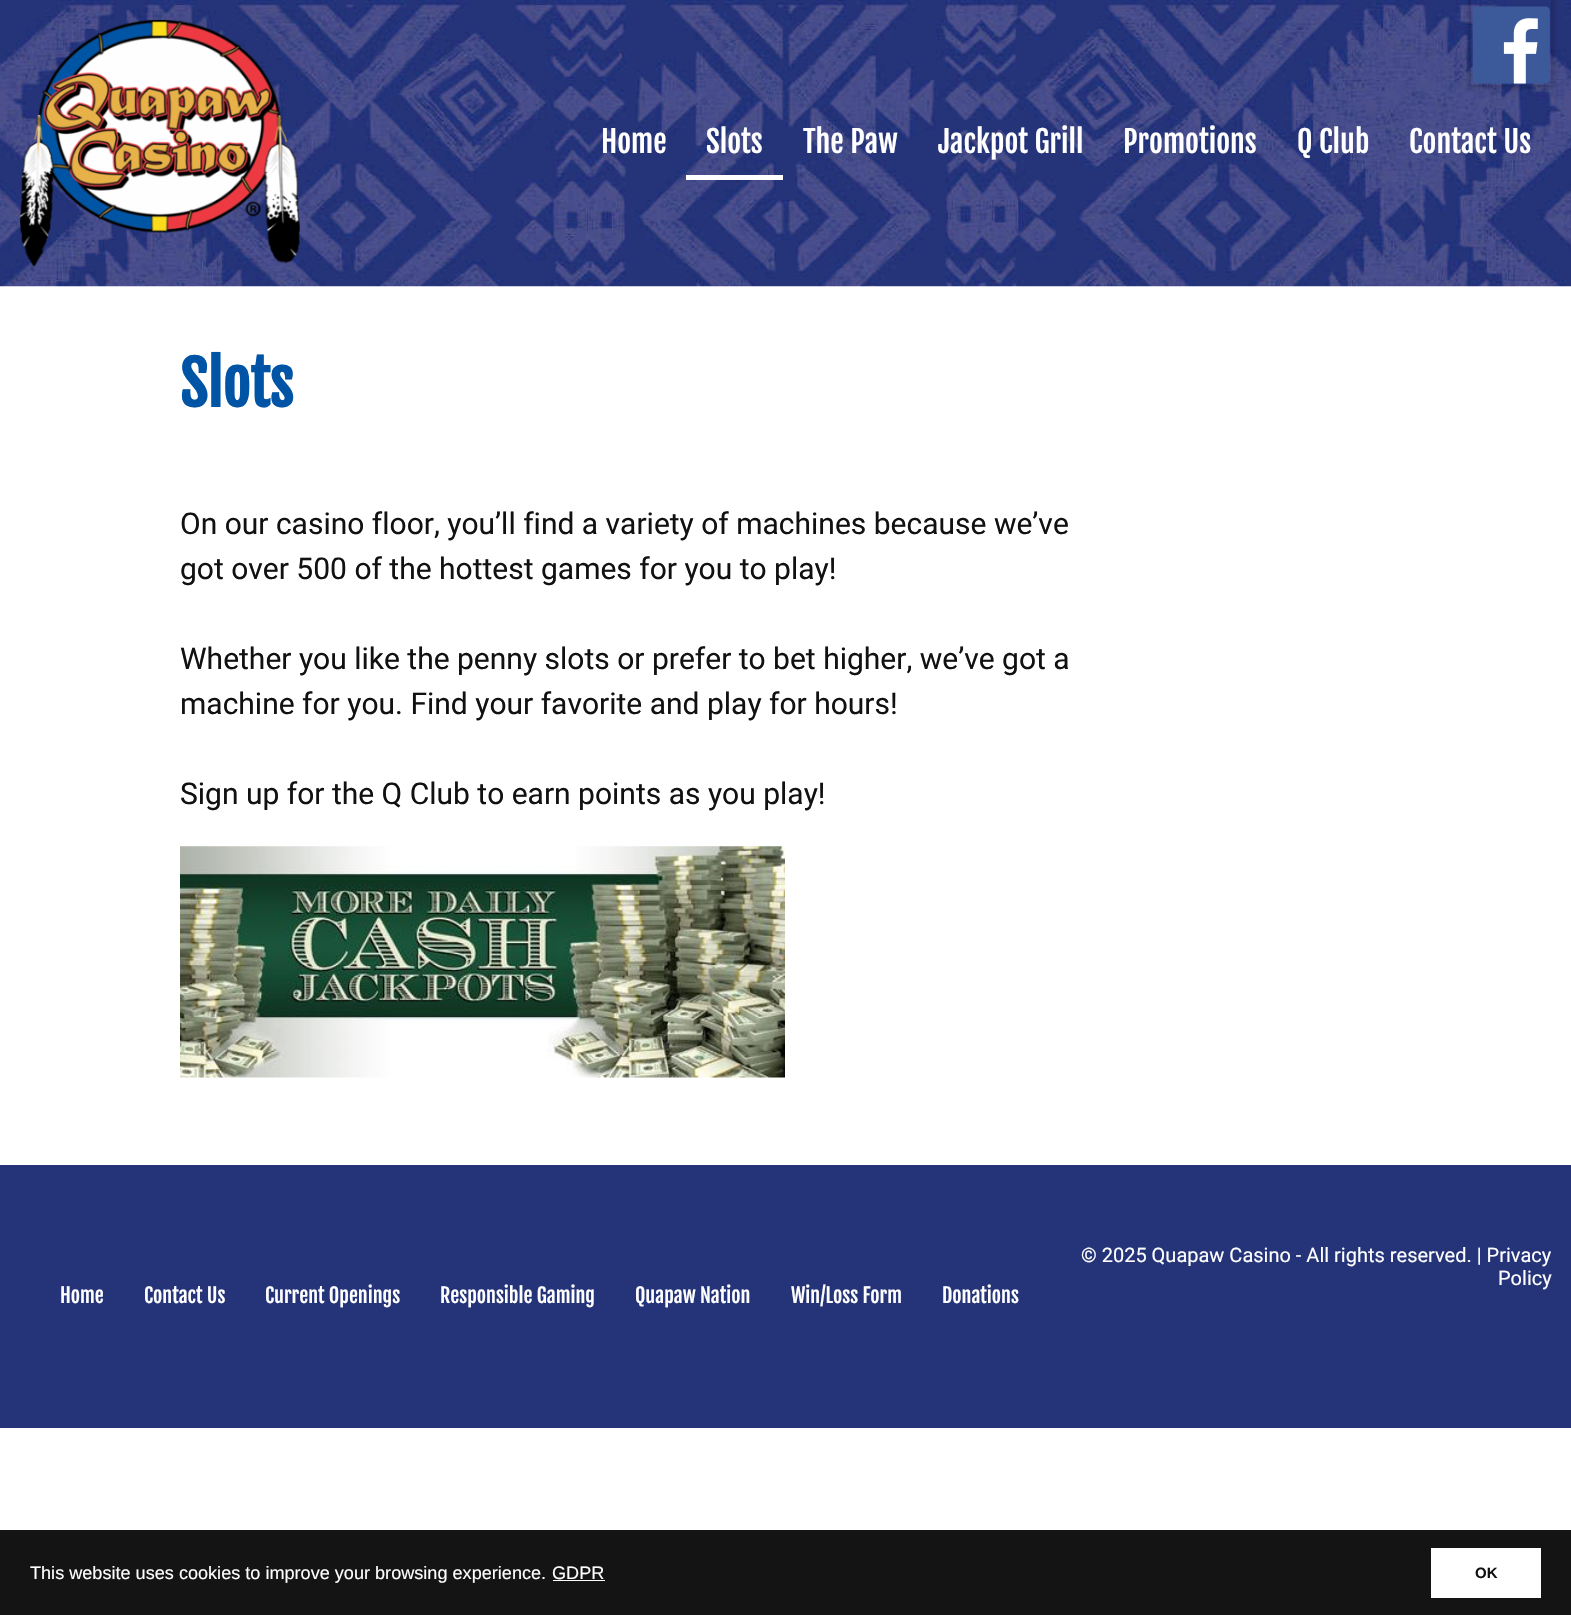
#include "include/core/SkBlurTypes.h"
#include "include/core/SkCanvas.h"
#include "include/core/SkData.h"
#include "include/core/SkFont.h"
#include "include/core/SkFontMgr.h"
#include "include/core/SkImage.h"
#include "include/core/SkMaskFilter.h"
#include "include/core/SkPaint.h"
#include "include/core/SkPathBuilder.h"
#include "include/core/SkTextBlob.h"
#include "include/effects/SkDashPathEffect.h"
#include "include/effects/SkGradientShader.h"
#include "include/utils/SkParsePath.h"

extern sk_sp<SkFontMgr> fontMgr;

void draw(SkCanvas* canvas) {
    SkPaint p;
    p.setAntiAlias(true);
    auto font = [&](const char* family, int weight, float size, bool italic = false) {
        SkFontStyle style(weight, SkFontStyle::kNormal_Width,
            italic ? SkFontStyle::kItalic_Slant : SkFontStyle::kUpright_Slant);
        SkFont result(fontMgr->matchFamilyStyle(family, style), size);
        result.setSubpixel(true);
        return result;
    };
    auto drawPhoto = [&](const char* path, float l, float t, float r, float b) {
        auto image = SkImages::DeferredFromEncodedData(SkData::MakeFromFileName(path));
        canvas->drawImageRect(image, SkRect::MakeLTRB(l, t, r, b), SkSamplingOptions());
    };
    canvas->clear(0xFFFFFFFF);
    drawPhoto("media/2.png", 0, 0, 1571, 287);
    canvas->save();
    canvas->clipPath(SkPathBuilder(SkPathFillType::kEvenOdd).moveTo(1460, 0).lineTo(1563, 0).lineTo(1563, 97).lineTo(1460, 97).close().moveTo(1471, 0).lineTo(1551, 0).lineTo(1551, 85).lineTo(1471, 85).close().detach(), true);
    p.setColor(0x33000000);
    p.setMaskFilter(SkMaskFilter::MakeBlur(kNormal_SkBlurStyle, 2.5f));
    canvas->drawRect(SkRect::MakeLTRB(1469, -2, 1554, 88), p);
    p.setMaskFilter(nullptr);
    canvas->restore();
    drawPhoto("media/1.png", 1472, 6, 1550, 84);
    drawPhoto("media/3.png", 20, 20, 300, 267);
    auto font1 = font("Fjalla One", 400, 30);
    p.setColor(0xFFFFFFFF);
    canvas->drawString("Home", 601, 153, font1, p);
    canvas->drawRect(SkRect::MakeLTRB(686, 175, 783, 180), p);
    {
        const struct { const char* s; float x, y; } items[] = {
            {"Slots", 706, 153},
            {"The Paw", 803, 153},
            {"Jackpot Grill", 938, 153},
            {"Promotions", 1123, 153},
            {"Q Club", 1297, 153},
            {"Contact Us", 1409, 153},
        };
        for (auto [s, x, y] : items) {
            canvas->drawString(s, x, y, font1, p);
        }
    }
    auto font2 = font("Fjalla One", 700, 60);
    p.setColor(0xFF0054A5);
    canvas->drawString("Slots", 180, 407, font2, p);
    auto font3 = font("Roboto", 400, 30);
    p.setColor(0xFF111111);
    {
        const struct { const char* s; float x, y; } items[] = {
            {"On our casino floor, you’ll find a variety of machines because we’ve", 180, 534},
            {"got over 500 of the hottest games for you to play!", 180, 579},
            {"Whether you like the penny slots or prefer to bet higher, we’ve got a", 180, 669},
            {"machine for you. Find your favorite and play for hours!", 180, 714},
            {"Sign up for the Q Club to earn points as you play!", 180, 804},
        };
        for (auto [s, x, y] : items) {
            canvas->drawString(s, x, y, font3, p);
        }
    }
    drawPhoto("media/4.png", 180, 846, 785, 1078);
    p.setColor(0xFF253479);
    canvas->drawRect(SkRect::MakeLTRB(0, 1165, 1571, 1428), p);
    auto font4 = font("Roboto", 400, 20);
    p.setColor(0xFFFFFFFF);
    canvas->drawString("© 2025 Quapaw Casino - All rights reserved. | Privacy", 1081, 1262, font4, p);
    canvas->drawString("Policy", 1498, 1285, font4, p);
    auto font5 = font("Fjalla One", 400, 20);
    {
        const struct { const char* s; float x, y; } items[] = {
            {"Home", 60, 1303},
            {"Contact Us", 144, 1303},
            {"Current Openings", 265, 1303},
            {"Responsible Gaming", 440, 1303},
            {"Quapaw Nation", 635, 1303},
            {"Win/Loss Form", 791, 1303},
            {"Donations", 942, 1303},
        };
        for (auto [s, x, y] : items) {
            canvas->drawString(s, x, y, font5, p);
        }
    }
    p.setColor(0xFF141414);
    canvas->drawRect(SkRect::MakeLTRB(0, 1530, 1571, 1615), p);
    auto font6 = font("Liberation Sans", 400, 18.1f);
    p.setColor(0xFFFFFFFF);
    canvas->drawString("This website uses cookies to improve your browsing experience.", 30, 1579, font6, p);
    canvas->drawString("GDPR", 552, 1579, font6, p);
    canvas->drawRect(SkRect::MakeLTRB(553, 1580, 605, 1581), p);
    canvas->drawRect(SkRect::MakeLTRB(1431, 1548, 1541, 1598), p);
    auto font7 = font("Liberation Sans", 700, 15);
    p.setColor(0xFF111111);
    canvas->drawString("OK", 1475, 1578, font7, p);
}
